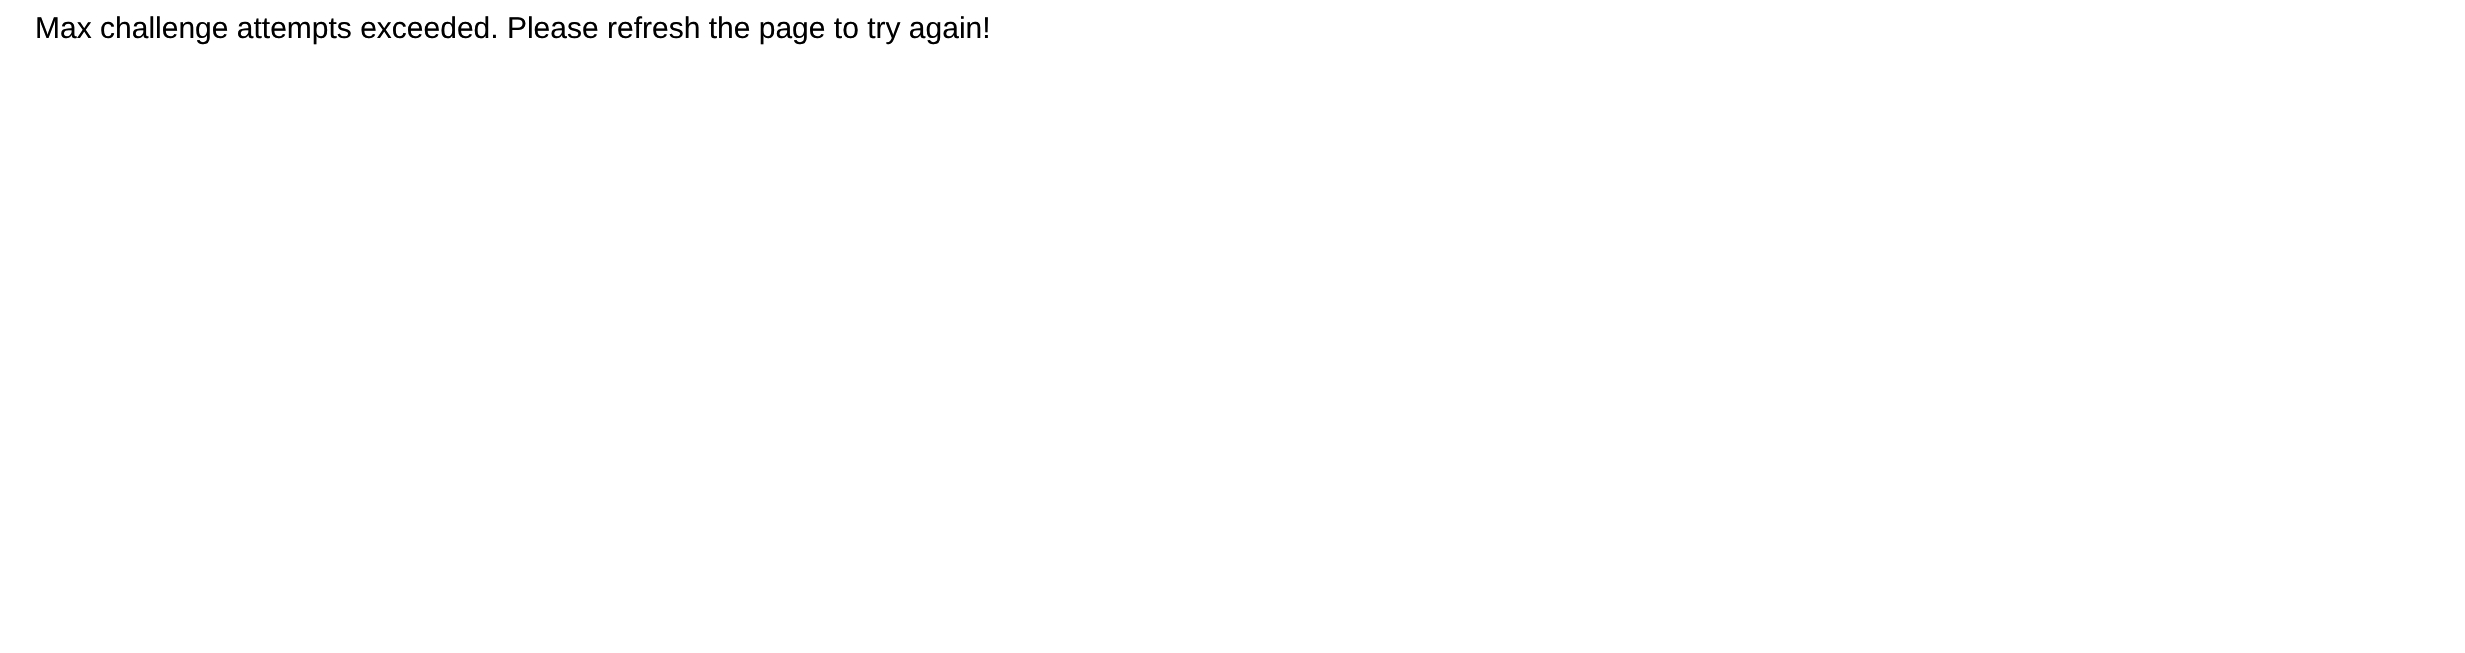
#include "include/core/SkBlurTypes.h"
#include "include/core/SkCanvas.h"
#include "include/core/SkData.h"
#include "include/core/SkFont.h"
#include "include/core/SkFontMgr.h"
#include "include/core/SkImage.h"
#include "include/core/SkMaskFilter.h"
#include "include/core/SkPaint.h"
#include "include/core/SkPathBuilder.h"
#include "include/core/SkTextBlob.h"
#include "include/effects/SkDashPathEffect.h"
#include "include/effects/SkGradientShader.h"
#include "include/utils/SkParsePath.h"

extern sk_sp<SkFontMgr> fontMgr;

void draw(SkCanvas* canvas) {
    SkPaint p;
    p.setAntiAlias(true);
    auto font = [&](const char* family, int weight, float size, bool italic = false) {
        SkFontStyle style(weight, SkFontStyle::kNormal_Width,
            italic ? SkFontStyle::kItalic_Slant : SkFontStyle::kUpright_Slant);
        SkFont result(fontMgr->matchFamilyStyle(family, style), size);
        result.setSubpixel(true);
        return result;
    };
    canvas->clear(0xFFFFFFFF);
    auto font1 = font("Liberation Sans", 400, 30);
    p.setColor(0xFF000000);
    canvas->drawString("Max challenge attempts exceeded. Please refresh the page to try again!", 35, 38, font1, p);
}
